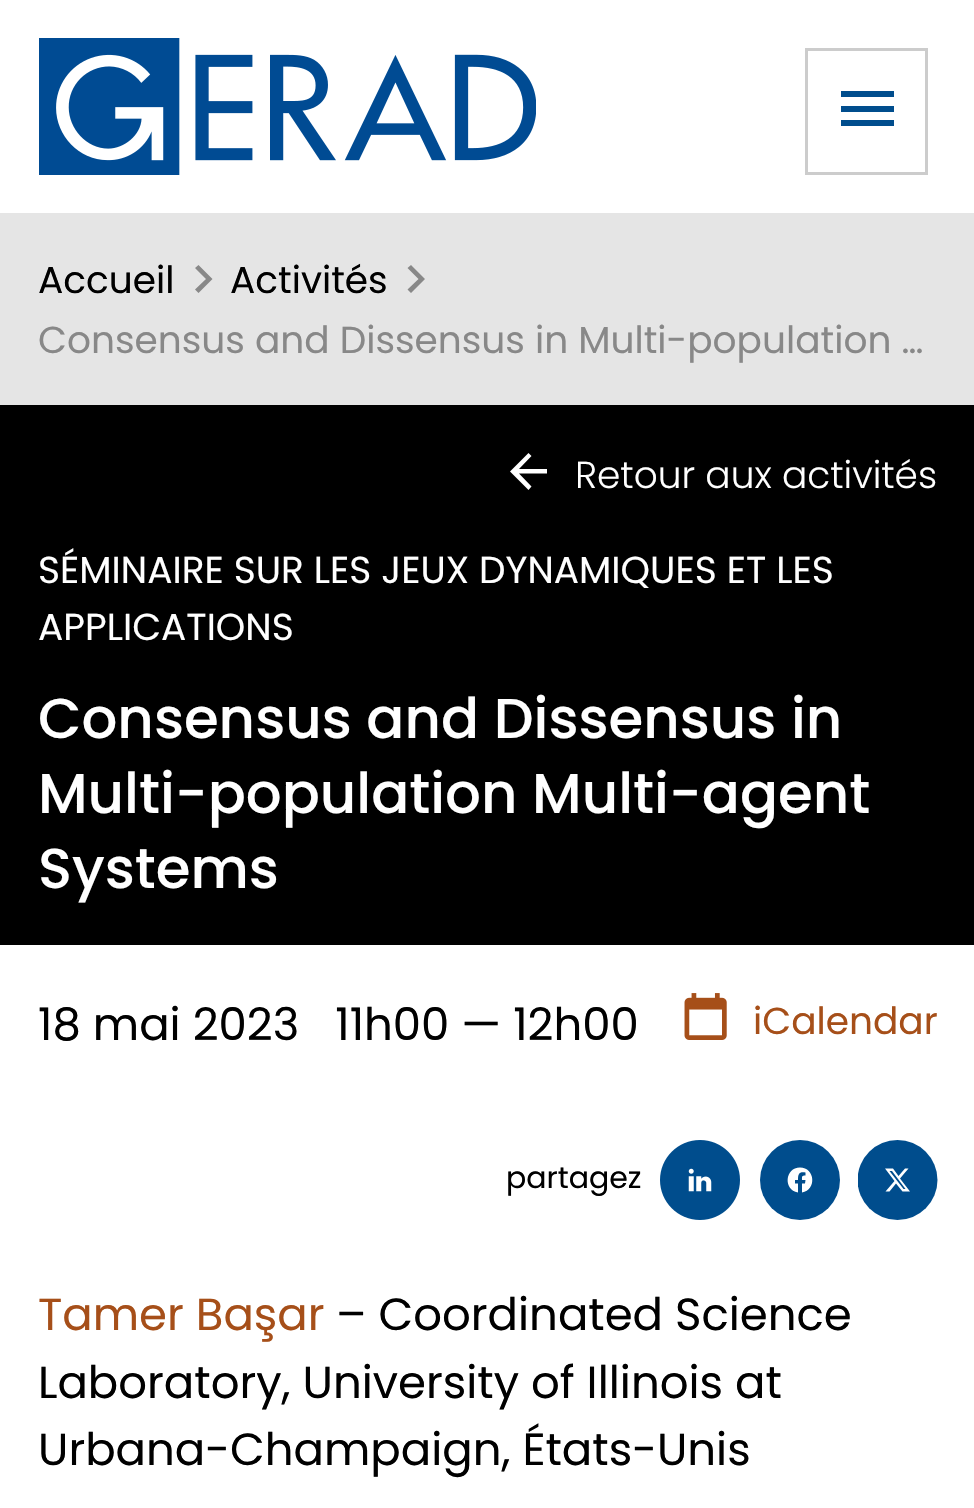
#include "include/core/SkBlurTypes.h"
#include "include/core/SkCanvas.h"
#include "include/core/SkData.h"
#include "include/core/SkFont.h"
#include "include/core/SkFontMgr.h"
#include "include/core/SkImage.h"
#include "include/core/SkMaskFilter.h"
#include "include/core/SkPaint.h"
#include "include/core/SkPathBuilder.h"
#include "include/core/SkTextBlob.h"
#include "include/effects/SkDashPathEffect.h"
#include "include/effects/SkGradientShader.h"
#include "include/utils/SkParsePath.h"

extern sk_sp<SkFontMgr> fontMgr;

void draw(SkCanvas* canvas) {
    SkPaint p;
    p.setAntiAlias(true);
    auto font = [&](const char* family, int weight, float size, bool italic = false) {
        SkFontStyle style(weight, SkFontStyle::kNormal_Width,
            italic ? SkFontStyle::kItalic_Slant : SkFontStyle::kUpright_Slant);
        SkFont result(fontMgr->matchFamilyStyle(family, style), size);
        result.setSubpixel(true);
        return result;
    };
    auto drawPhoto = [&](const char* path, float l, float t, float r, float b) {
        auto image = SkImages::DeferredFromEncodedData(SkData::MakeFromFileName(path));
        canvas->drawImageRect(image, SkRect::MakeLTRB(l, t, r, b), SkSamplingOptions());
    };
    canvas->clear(0xFFFFFFFF);
    drawPhoto("media/1.png", 39, 38, 536, 175);
    p.setStyle(SkPaint::kStroke_Style);
    p.setStrokeWidth(3);
    p.setColor(0xFFCCCCCC);
    canvas->drawRect(SkRect::MakeLTRB(806.5f, 49.5f, 926.5f, 173.5f), p);
    p.setStyle(SkPaint::kFill_Style);
    p.setColor(0xFF004D8D);
    canvas->drawPath(SkPathBuilder().moveTo(841, 91).lineTo(894, 91).lineTo(894, 97).lineTo(841, 97).close().moveTo(841, 106).lineTo(894, 106).lineTo(894, 112).lineTo(841, 112).close().moveTo(841, 120).lineTo(894, 120).lineTo(894, 126).lineTo(841, 126).close().detach(), p);
    p.setColor(0xFFE5E5E5);
    canvas->drawRect(SkRect::MakeLTRB(0, 213, 974, 405), p);
    auto font1 = font("Poppins", 400, 37.5f);
    p.setColor(0xFF000000);
    canvas->drawString("Accueil", 38, 293, font1, p);
    p.setColor(0xFF888888);
    canvas->drawPath(SkPathBuilder().moveTo(195, 289.5f).lineTo(206, 279).lineTo(195, 268).lineTo(198.5f, 265).lineTo(212.5f, 279).lineTo(198.5f, 293).close().detach(), p);
    p.setColor(0xFF000000);
    canvas->drawString("Activités", 230, 293, font1, p);
    p.setColor(0xFF888888);
    canvas->drawPath(SkPathBuilder().moveTo(407.5f, 289.5f).lineTo(418.5f, 279).lineTo(407.5f, 268).lineTo(411, 265).lineTo(425, 279).lineTo(411, 293).close().detach(), p);
    canvas->drawString("Consensus and Dissensus in Multi-population …", 38, 353, font1, p);
    p.setColor(0xFF000000);
    canvas->drawRect(SkRect::MakeLTRB(0, 405, 974, 945), p);
    p.setColor(0xFFFFFFFF);
    canvas->drawPath(SkPathBuilder().moveTo(547, 469).lineTo(547, 473.5f).lineTo(519, 473.5f).lineTo(531.5f, 486.5f).lineTo(528.5f, 490).lineTo(510, 471.5f).lineTo(528.5f, 453).lineTo(531.5f, 456).lineTo(519, 469).close().detach(), p);
    auto font2 = font("Poppins", 300, 37.5f);
    canvas->drawString("Retour aux activités", 575, 488, font2, p);
    canvas->drawString("SÉMINAIRE SUR LES JEUX DYNAMIQUES ET LES", 38, 583, font1, p);
    canvas->drawString("APPLICATIONS", 38, 640, font1, p);
    auto font3 = font("Poppins", 500, 56.25f);
    {
        const struct { const char* s; float x, y; } items[] = {
            {"Consensus and Dissensus in", 38, 738},
            {"Multi-population Multi-agent", 38, 813},
            {"Systems", 38, 888},
        };
        for (auto [s, x, y] : items) {
            canvas->drawString(s, x, y, font3, p);
        }
    }
    auto font4 = font("Poppins", 400, 45);
    p.setColor(0xFF000000);
    canvas->drawString("18 mai 2023   11h00 — 12h00", 38, 1040, font4, p);
    drawPhoto("media/2.png", 684, 993, 727, 1040);
    p.setColor(0xFFA64F19);
    canvas->drawString("iCalendar", 753, 1034, font1, p);
    auto font5 = font("Poppins", 400, 30);
    p.setColor(0xFF000000);
    canvas->drawString("partagez", 506, 1188, font5, p);
    drawPhoto("media/3.png", 660, 1140, 740, 1220);
    p.setColor(0xFF004D8D);
    canvas->drawCircle(800, 1180, 40, p);
    p.setColor(0xFFFFFFFF);
    canvas->drawPath(SkPathBuilder().moveTo(800, 1167.5f).cubicTo(785, 1167.5f, 783, 1190, 798, 1192.5f).lineTo(798, 1183.5f).lineTo(795, 1183.5f).lineTo(795, 1180).lineTo(798, 1180).cubicTo(798, 1174, 799, 1171.5f, 805.5f, 1172.5f).lineTo(805.5f, 1175.5f).cubicTo(801.5f, 1175.5f, 802, 1176.5f, 802, 1180).lineTo(805.5f, 1180).lineTo(805, 1183.5f).lineTo(802, 1183.5f).lineTo(802, 1192.5f).cubicTo(817, 1190, 815, 1167.5f, 800, 1167.5f).close().detach(), p);
    canvas->save();
    canvas->clipRect(SkRect::MakeLTRB(858, 1140, 938, 1220));
    p.setColor(0xFF004D8D);
    canvas->drawCircle(897.5f, 1180, 40, p);
    canvas->restore();
    p.setColor(0xFFFFFFFF);
    canvas->drawPath(SkPathBuilder().moveTo(905, 1168.5f).lineTo(908.5f, 1168.5f).lineTo(900, 1178.5f).lineTo(910, 1191.5f).lineTo(902.5f, 1191.5f).lineTo(896, 1183.5f).lineTo(889.5f, 1191.5f).lineTo(885.5f, 1191.5f).lineTo(894.5f, 1181).lineTo(885, 1168.5f).lineTo(893, 1168.5f).lineTo(898.5f, 1176).close().moveTo(903.5f, 1189).lineTo(905.5f, 1189).lineTo(892, 1171).lineTo(889.5f, 1171).close().detach(), p);
    p.setColor(0xFFA64F19);
    canvas->drawString("Tamer Başar", 38, 1330, font4, p);
    p.setColor(0xFF000000);
    {
        const struct { const char* s; float x, y; } items[] = {
            {"– Coordinated Science", 336, 1330},
            {"Laboratory, University of Illinois at", 38, 1398},
            {"Urbana-Champaign, États-Unis", 38, 1465},
        };
        for (auto [s, x, y] : items) {
            canvas->drawString(s, x, y, font4, p);
        }
    }
}
